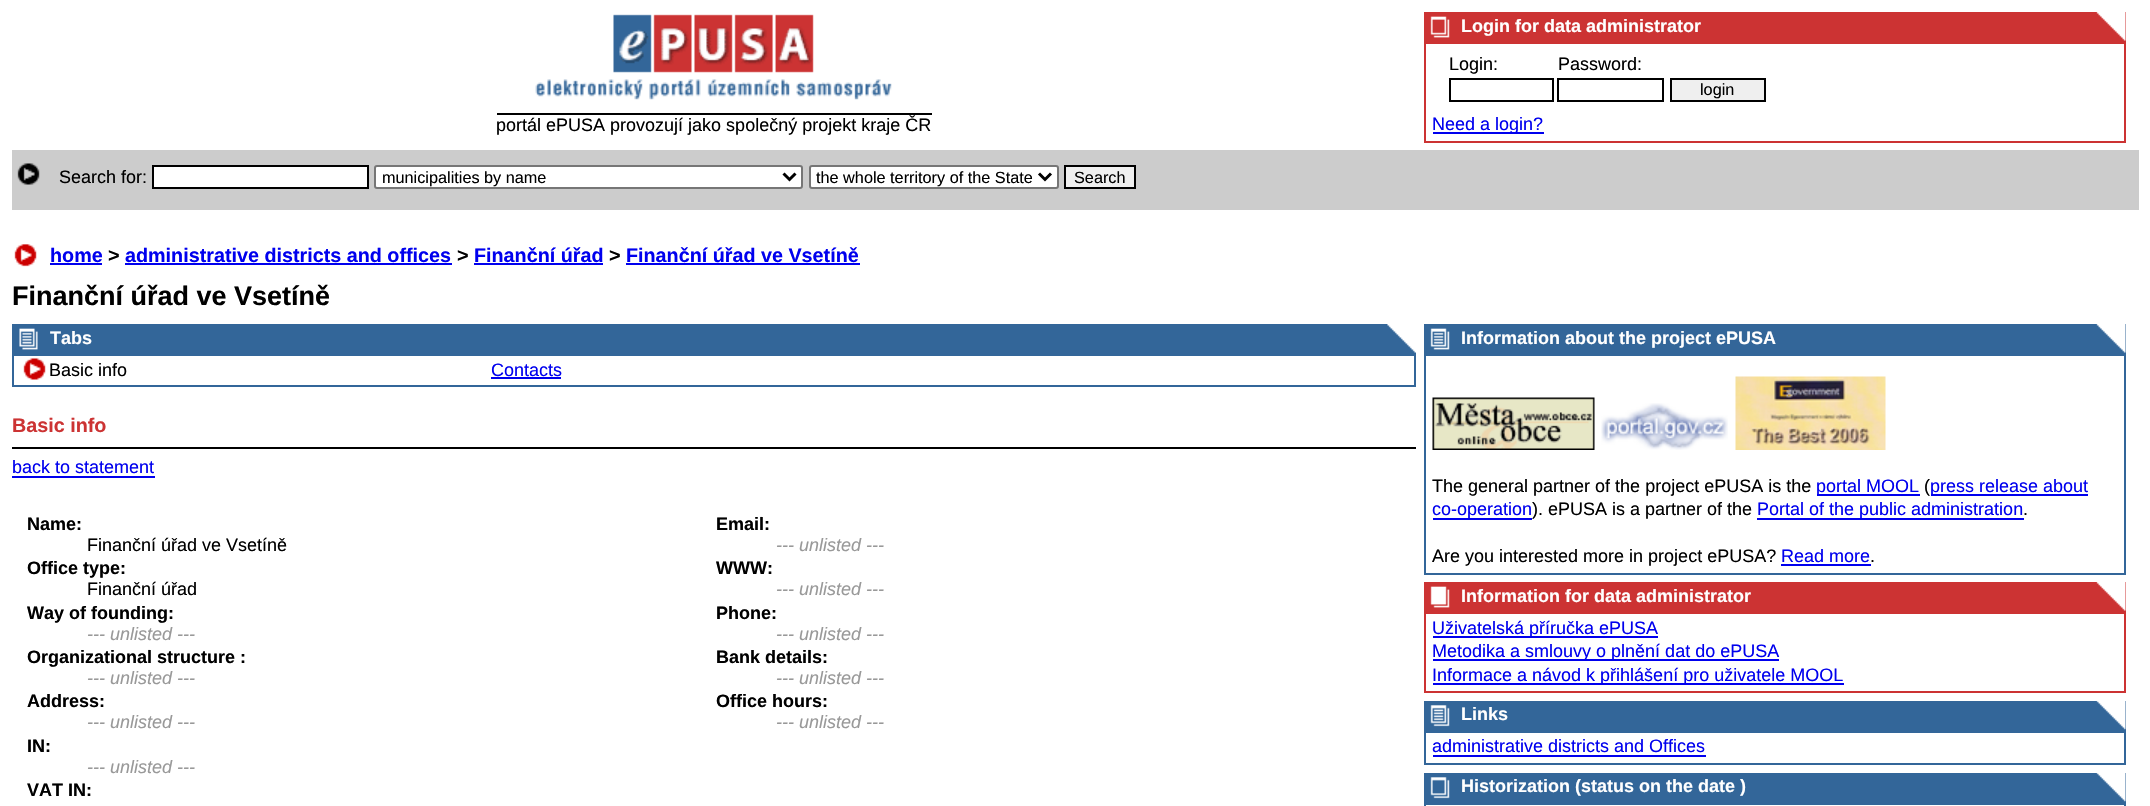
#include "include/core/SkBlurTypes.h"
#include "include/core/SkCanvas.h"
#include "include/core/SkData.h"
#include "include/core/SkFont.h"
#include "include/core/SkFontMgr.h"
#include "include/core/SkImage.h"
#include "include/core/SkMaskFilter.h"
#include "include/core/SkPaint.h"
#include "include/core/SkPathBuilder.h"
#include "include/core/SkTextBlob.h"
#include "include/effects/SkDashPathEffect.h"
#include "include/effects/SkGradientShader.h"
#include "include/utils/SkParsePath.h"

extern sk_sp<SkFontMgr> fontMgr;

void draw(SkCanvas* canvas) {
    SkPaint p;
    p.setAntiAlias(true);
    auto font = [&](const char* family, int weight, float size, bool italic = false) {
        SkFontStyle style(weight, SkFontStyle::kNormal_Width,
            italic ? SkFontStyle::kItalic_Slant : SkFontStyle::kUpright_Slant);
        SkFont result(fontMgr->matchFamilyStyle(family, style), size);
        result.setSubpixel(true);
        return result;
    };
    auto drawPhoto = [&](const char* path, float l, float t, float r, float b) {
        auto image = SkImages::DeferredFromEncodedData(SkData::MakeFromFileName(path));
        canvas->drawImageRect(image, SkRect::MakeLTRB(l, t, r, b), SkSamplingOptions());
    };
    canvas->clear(0xFFFFFFFF);
    drawPhoto("media/1.png", 535, 14, 892, 100);
    auto font1 = font("Liberation Sans", 400, 18);
    p.setColor(0xFF000000);
    canvas->drawString("portál ePUSA provozují jako společný projekt kraje ČR", 496, 131, font1, p);
    canvas->drawRect(SkRect::MakeLTRB(497, 113, 932, 115), p);
    p.setColor(0xFFCC3333);
    canvas->drawRect(SkRect::MakeLTRB(1424, 12, 2126, 42), p);
    drawPhoto("media/2.png", 2096, 12, 2126, 41);
    drawPhoto("media/3.png", 1430, 16, 1450, 38);
    auto font2 = font("Liberation Sans", 700, 18);
    p.setColor(0xFFFFFFFF);
    canvas->drawString("Login for data administrator", 1461, 32, font2, p);
    p.setStyle(SkPaint::kStroke_Style);
    p.setStrokeWidth(2);
    p.setColor(0xFFCC3333);
    canvas->drawRect(SkRect::MakeLTRB(1425, 43, 2125, 142), p);
    p.setStyle(SkPaint::kFill_Style);
    p.setColor(0xFF000000);
    canvas->drawString("Login:", 1449, 70, font1, p);
    p.setStyle(SkPaint::kStroke_Style);
    canvas->drawRect(SkRect::MakeLTRB(1450, 79, 1553, 101), p);
    p.setStyle(SkPaint::kFill_Style);
    canvas->drawString("Password:", 1558, 70, font1, p);
    p.setStyle(SkPaint::kStroke_Style);
    canvas->drawRect(SkRect::MakeLTRB(1558, 79, 1663, 101), p);
    p.setStyle(SkPaint::kFill_Style);
    p.setColor(0xFFEFEFEF);
    canvas->drawRect(SkRect::MakeLTRB(1671, 79, 1765, 101), p);
    p.setStyle(SkPaint::kStroke_Style);
    p.setColor(0xFF000000);
    canvas->drawRect(SkRect::MakeLTRB(1671, 79, 1765, 101), p);
    auto font3 = font("Liberation Sans", 400, 16.25f);
    p.setStyle(SkPaint::kFill_Style);
    canvas->drawString("login", 1700, 95, font3, p);
    p.setColor(0xFF0000EE);
    canvas->drawRect(SkRect::MakeLTRB(1433, 132, 1544, 134), p);
    canvas->drawString("Need a login?", 1432, 130, font1, p);
    p.setColor(0xFFCCCCCC);
    canvas->drawRect(SkRect::MakeLTRB(12, 150, 2139, 210), p);
    drawPhoto("media/4.png", 17, 163, 40, 185);
    p.setColor(0xFF000000);
    canvas->drawString("Search for:", 59, 183, font1, p);
    p.setColor(0xFFFFFFFF);
    canvas->drawRect(SkRect::MakeLTRB(153, 166, 368, 188), p);
    p.setStyle(SkPaint::kStroke_Style);
    p.setColor(0xFF000000);
    canvas->drawRect(SkRect::MakeLTRB(153, 166, 368, 188), p);
    p.setStyle(SkPaint::kFill_Style);
    p.setColor(0xFFFFFFFF);
    canvas->drawRoundRect(SkRect::MakeLTRB(375, 166, 802, 188), 2, 2, p);
    p.setStyle(SkPaint::kStroke_Style);
    p.setColor(0xFF767676);
    canvas->drawRoundRect(SkRect::MakeLTRB(375, 166, 802, 188), 2, 2, p);
    p.setStrokeWidth(3);
    p.setColor(0xFF000000);
    canvas->drawPath(SkPathBuilder().moveTo(783.5f, 173.5f).lineTo(789.5f, 179.5f).lineTo(795.5f, 173.5f).detach(), p);
    p.setStyle(SkPaint::kFill_Style);
    canvas->drawString("municipalities by name", 382, 183, font3, p);
    p.setColor(0xFFFFFFFF);
    canvas->drawRoundRect(SkRect::MakeLTRB(810, 166, 1058, 188), 2, 2, p);
    p.setStyle(SkPaint::kStroke_Style);
    p.setStrokeWidth(2);
    p.setColor(0xFF767676);
    canvas->drawRoundRect(SkRect::MakeLTRB(810, 166, 1058, 188), 2, 2, p);
    p.setStrokeWidth(3);
    p.setColor(0xFF000000);
    canvas->drawPath(SkPathBuilder().moveTo(1039, 173.5f).lineTo(1045, 179.5f).lineTo(1051, 173.5f).detach(), p);
    p.setStyle(SkPaint::kFill_Style);
    canvas->drawString("the whole territory of the State", 816, 183, font3, p);
    p.setColor(0xFFEFEFEF);
    canvas->drawRect(SkRect::MakeLTRB(1065, 166, 1135, 188), p);
    p.setStyle(SkPaint::kStroke_Style);
    p.setStrokeWidth(2);
    p.setColor(0xFF000000);
    canvas->drawRect(SkRect::MakeLTRB(1065, 166, 1135, 188), p);
    p.setStyle(SkPaint::kFill_Style);
    canvas->drawString("Search", 1074, 183, font3, p);
    drawPhoto("media/5.png", 14, 244, 37, 267);
    auto font4 = font("Liberation Sans", 700, 19.75f);
    p.setColor(0xFF0000EE);
    canvas->drawString("home", 50, 262, font4, p);
    canvas->drawRect(SkRect::MakeLTRB(50, 263, 102, 265), p);
    p.setColor(0xFF000000);
    canvas->drawString(">", 108, 262, font4, p);
    p.setColor(0xFF0000EE);
    canvas->drawString("administrative districts and offices", 125, 262, font4, p);
    canvas->drawRect(SkRect::MakeLTRB(125, 263, 452, 265), p);
    p.setColor(0xFF000000);
    canvas->drawString(">", 457, 262, font4, p);
    p.setColor(0xFF0000EE);
    canvas->drawString("Finanční úřad", 474, 262, font4, p);
    canvas->drawRect(SkRect::MakeLTRB(474, 263, 603, 265), p);
    p.setColor(0xFF000000);
    canvas->drawString(">", 609, 262, font4, p);
    p.setColor(0xFF0000EE);
    canvas->drawString("Finanční úřad ve Vsetíně", 626, 262, font4, p);
    canvas->drawRect(SkRect::MakeLTRB(626, 263, 860, 265), p);
    auto font5 = font("Liberation Sans", 700, 27);
    p.setColor(0xFF000000);
    canvas->drawString("Finanční úřad ve Vsetíně", 12, 305, font5, p);
    p.setColor(0xFF336699);
    canvas->drawRect(SkRect::MakeLTRB(12, 324, 1416, 354), p);
    drawPhoto("media/6.png", 1387, 324, 1416, 353);
    drawPhoto("media/7.png", 19, 328, 38, 350);
    p.setColor(0xFFFFFFFF);
    canvas->drawString("Tabs", 50, 344, font2, p);
    p.setStyle(SkPaint::kStroke_Style);
    p.setColor(0xFF336699);
    canvas->drawRect(SkRect::MakeLTRB(13, 355, 1415, 386), p);
    drawPhoto("media/8.png", 23, 358, 46, 380);
    p.setStyle(SkPaint::kFill_Style);
    p.setColor(0xFF000000);
    canvas->drawString("Basic info", 49, 376, font1, p);
    p.setColor(0xFF0000EE);
    canvas->drawString("Contacts", 491, 376, font1, p);
    canvas->drawRect(SkRect::MakeLTRB(491, 377, 561, 379), p);
    p.setColor(0xFFCC3333);
    canvas->drawString("Basic info", 12, 432, font4, p);
    p.setColor(0xFF000000);
    canvas->drawRect(SkRect::MakeLTRB(12, 447, 1416, 449), p);
    p.setColor(0xFF0000EE);
    canvas->drawString("back to statement", 12, 473, font1, p);
    canvas->drawRect(SkRect::MakeLTRB(12, 476, 155, 478), p);
    p.setColor(0xFF000000);
    canvas->drawString("Name:", 27, 530, font2, p);
    canvas->drawString("Finanční úřad ve Vsetíně", 87, 551, font1, p);
    canvas->drawString("Office type:", 27, 574, font2, p);
    canvas->drawString("Finanční úřad", 87, 595, font1, p);
    canvas->drawString("Way of founding:", 27, 619, font2, p);
    auto font6 = font("Liberation Sans", 400, 18, true);
    p.setColor(0xFF999999);
    canvas->drawString("--- unlisted ---", 87, 640, font6, p);
    p.setColor(0xFF000000);
    canvas->drawString("Organizational structure :", 27, 663, font2, p);
    p.setColor(0xFF999999);
    canvas->drawString("--- unlisted ---", 87, 684, font6, p);
    p.setColor(0xFF000000);
    canvas->drawString("Address:", 27, 707, font2, p);
    p.setColor(0xFF999999);
    canvas->drawString("--- unlisted ---", 87, 728, font6, p);
    p.setColor(0xFF000000);
    canvas->drawString("IN:", 27, 752, font2, p);
    p.setColor(0xFF999999);
    canvas->drawString("--- unlisted ---", 87, 773, font6, p);
    p.setColor(0xFF000000);
    canvas->drawString("VAT IN:", 27, 796, font2, p);
    canvas->drawString("Email:", 716, 530, font2, p);
    p.setColor(0xFF999999);
    canvas->drawString("--- unlisted ---", 776, 551, font6, p);
    p.setColor(0xFF000000);
    canvas->drawString("WWW:", 716, 574, font2, p);
    p.setColor(0xFF999999);
    canvas->drawString("--- unlisted ---", 776, 595, font6, p);
    p.setColor(0xFF000000);
    canvas->drawString("Phone:", 716, 619, font2, p);
    p.setColor(0xFF999999);
    canvas->drawString("--- unlisted ---", 776, 640, font6, p);
    p.setColor(0xFF000000);
    canvas->drawString("Bank details:", 716, 663, font2, p);
    p.setColor(0xFF999999);
    canvas->drawString("--- unlisted ---", 776, 684, font6, p);
    p.setColor(0xFF000000);
    canvas->drawString("Office hours:", 716, 707, font2, p);
    p.setColor(0xFF999999);
    canvas->drawString("--- unlisted ---", 776, 728, font6, p);
    p.setColor(0xFF336699);
    canvas->drawRect(SkRect::MakeLTRB(1424, 324, 2126, 354), p);
    drawPhoto("media/9.png", 2096, 324, 2126, 353);
    drawPhoto("media/10.png", 1430, 328, 1450, 350);
    p.setColor(0xFFFFFFFF);
    canvas->drawString("Information about the project ePUSA", 1461, 344, font2, p);
    p.setStyle(SkPaint::kStroke_Style);
    p.setColor(0xFF336699);
    canvas->drawRect(SkRect::MakeLTRB(1425, 355, 2125, 574), p);
    drawPhoto("media/11.png", 1432, 397, 1595, 450);
    drawPhoto("media/12.png", 1601, 403, 1728, 450);
    drawPhoto("media/13.png", 1735, 376, 1886, 450);
    p.setStyle(SkPaint::kFill_Style);
    p.setColor(0xFF000000);
    canvas->drawString("The general partner of the project ePUSA is the", 1432, 492, font1, p);
    p.setColor(0xFF0000EE);
    canvas->drawRect(SkRect::MakeLTRB(1817, 494, 1920, 496), p);
    canvas->drawString("portal MOOL", 1816, 492, font1, p);
    p.setColor(0xFF000000);
    canvas->drawString("(", 1924, 492, font1, p);
    p.setColor(0xFF0000EE);
    canvas->drawRect(SkRect::MakeLTRB(1931, 494, 2088, 496), p);
    canvas->drawString("press release about", 1930, 492, font1, p);
    canvas->drawRect(SkRect::MakeLTRB(1433, 518, 1532, 520), p);
    canvas->drawString("co-operation", 1432, 515, font1, p);
    p.setColor(0xFF000000);
    canvas->drawString("). ePUSA is a partner of the", 1532, 515, font1, p);
    p.setColor(0xFF0000EE);
    canvas->drawRect(SkRect::MakeLTRB(1757, 518, 2024, 520), p);
    canvas->drawString("Portal of the public administration", 1757, 515, font1, p);
    p.setColor(0xFF000000);
    canvas->drawString(".", 2023, 515, font1, p);
    canvas->drawString("Are you interested more in project ePUSA?", 1432, 562, font1, p);
    p.setColor(0xFF0000EE);
    canvas->drawString("Read more", 1781, 562, font1, p);
    canvas->drawRect(SkRect::MakeLTRB(1781, 564, 1871, 566), p);
    p.setColor(0xFF000000);
    canvas->drawString(".", 1870, 562, font1, p);
    p.setColor(0xFFCC3333);
    canvas->drawRect(SkRect::MakeLTRB(1424, 582, 2126, 612), p);
    drawPhoto("media/2.png", 2096, 582, 2126, 611);
    drawPhoto("media/14.png", 1430, 586, 1450, 608);
    p.setColor(0xFFFFFFFF);
    canvas->drawString("Information for data administrator", 1461, 602, font2, p);
    p.setStyle(SkPaint::kStroke_Style);
    p.setColor(0xFFCC3333);
    canvas->drawRect(SkRect::MakeLTRB(1425, 613, 2125, 692), p);
    p.setStyle(SkPaint::kFill_Style);
    p.setColor(0xFF0000EE);
    canvas->drawRect(SkRect::MakeLTRB(1433, 636, 1658, 638), p);
    canvas->drawString("Uživatelská příručka ePUSA", 1432, 634, font1, p);
    canvas->drawRect(SkRect::MakeLTRB(1433, 659, 1779, 661), p);
    canvas->drawString("Metodika a smlouvy o plnění dat do ePUSA", 1432, 657, font1, p);
    canvas->drawRect(SkRect::MakeLTRB(1433, 683, 1844, 685), p);
    canvas->drawString("Informace a návod k přihlášení pro uživatele MOOL", 1432, 681, font1, p);
    p.setColor(0xFF336699);
    canvas->drawRect(SkRect::MakeLTRB(1424, 701, 2126, 731), p);
    drawPhoto("media/15.png", 2096, 701, 2126, 730);
    drawPhoto("media/16.png", 1430, 705, 1450, 727);
    p.setColor(0xFFFFFFFF);
    canvas->drawString("Links", 1461, 720, font2, p);
    p.setStyle(SkPaint::kStroke_Style);
    p.setColor(0xFF336699);
    canvas->drawRect(SkRect::MakeLTRB(1425, 732, 2125, 764), p);
    p.setStyle(SkPaint::kFill_Style);
    p.setColor(0xFF0000EE);
    canvas->drawString("administrative districts and Offices", 1432, 752, font1, p);
    canvas->drawRect(SkRect::MakeLTRB(1433, 755, 1706, 757), p);
    p.setColor(0xFF336699);
    canvas->drawRect(SkRect::MakeLTRB(1424, 773, 2126, 803), p);
    drawPhoto("media/15.png", 2096, 773, 2126, 802);
    drawPhoto("media/17.png", 1430, 777, 1450, 799);
    p.setColor(0xFFFFFFFF);
    canvas->drawString("Historization (status on the date )", 1461, 792, font2, p);
    p.setStyle(SkPaint::kStroke_Style);
    p.setColor(0xFF336699);
    canvas->drawRect(SkRect::MakeLTRB(1425, 804, 2125, 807), p);
}
